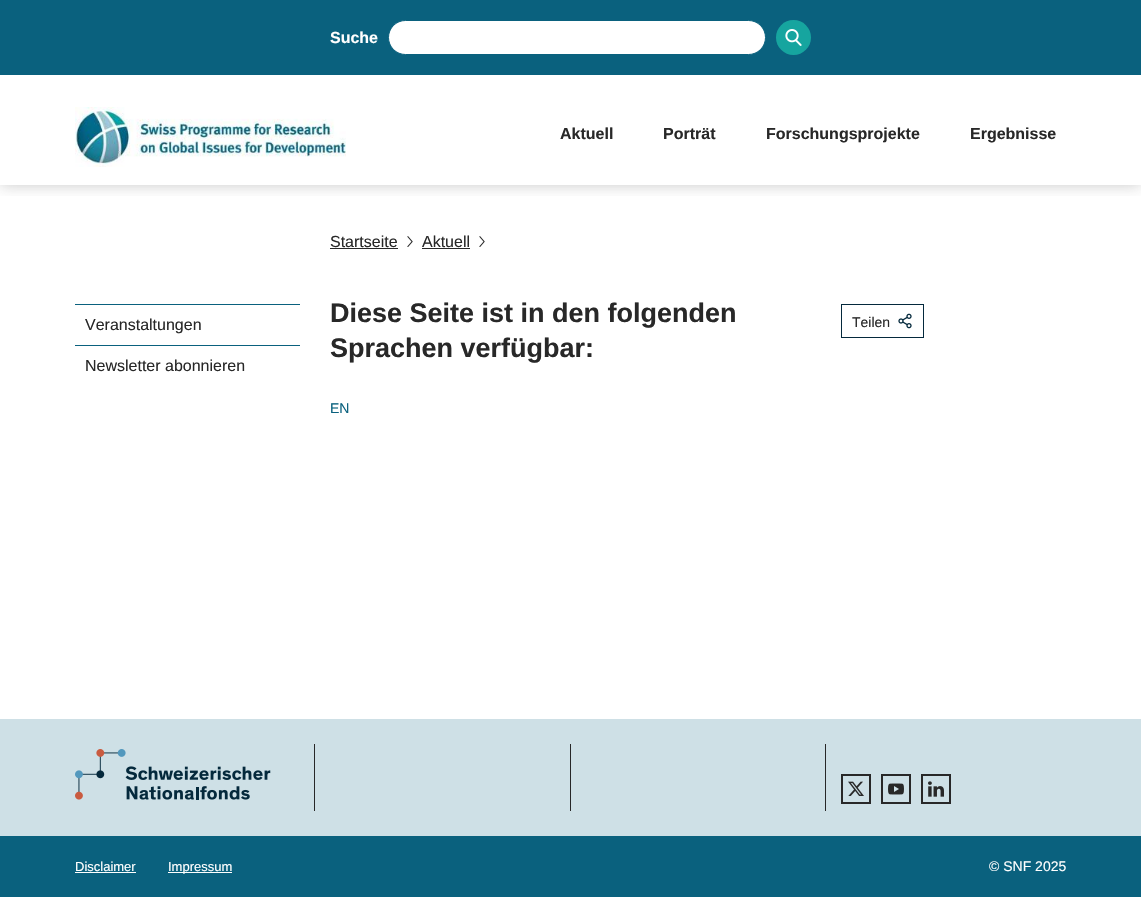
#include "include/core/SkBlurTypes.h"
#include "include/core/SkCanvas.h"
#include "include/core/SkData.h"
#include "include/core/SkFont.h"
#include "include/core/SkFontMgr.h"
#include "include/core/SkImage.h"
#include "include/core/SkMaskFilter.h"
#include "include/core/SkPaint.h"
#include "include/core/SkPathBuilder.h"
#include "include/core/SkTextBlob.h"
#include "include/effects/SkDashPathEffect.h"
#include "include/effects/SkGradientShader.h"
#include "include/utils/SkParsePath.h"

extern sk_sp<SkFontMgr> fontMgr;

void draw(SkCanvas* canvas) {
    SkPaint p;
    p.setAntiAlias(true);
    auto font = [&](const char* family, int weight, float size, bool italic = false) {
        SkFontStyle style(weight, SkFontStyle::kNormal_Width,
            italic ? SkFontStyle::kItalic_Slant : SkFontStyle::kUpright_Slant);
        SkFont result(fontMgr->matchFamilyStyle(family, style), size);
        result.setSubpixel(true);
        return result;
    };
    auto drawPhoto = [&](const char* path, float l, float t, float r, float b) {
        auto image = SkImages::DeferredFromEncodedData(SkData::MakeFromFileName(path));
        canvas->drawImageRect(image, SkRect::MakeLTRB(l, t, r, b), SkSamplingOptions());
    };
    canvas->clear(0xFFFFFFFF);
    canvas->save();
    canvas->clipRect(SkRect::MakeLTRB(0, 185, 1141, 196));
    p.setColor(0x40282828);
    p.setMaskFilter(SkMaskFilter::MakeBlur(kNormal_SkBlurStyle, 7.5f));
    canvas->drawRect(SkRect::MakeLTRB(0, 0, 1141, 185), p);
    p.setMaskFilter(nullptr);
    canvas->restore();
    p.setColor(0xFF0A617E);
    canvas->drawRect(SkRect::MakeLTRB(0, 0, 1141, 75), p);
    auto font1 = font("Liberation Sans", 700, 16);
    p.setColor(0xFFFFFFFF);
    canvas->drawString("Suche", 330, 43, font1, p);
    canvas->drawRoundRect(SkRect::MakeLTRB(388.5f, 20.5f, 765.5f, 54.5f), 17, 17, p);
    p.setStyle(SkPaint::kStroke_Style);
    p.setStrokeWidth(1);
    p.setColor(0xFF0A617E);
    canvas->drawRoundRect(SkRect::MakeLTRB(388.5f, 20.5f, 765.5f, 54.5f), 17, 17, p);
    p.setStyle(SkPaint::kFill_Style);
    p.setColor(0xFF16A59F);
    canvas->drawCircle(793.5f, 37.5f, 17.5f, p);
    drawPhoto("media/1.png", 785, 29, 802, 46);
    drawPhoto("media/2.png", 75, 107, 346, 167);
    p.setColor(0xFF282828);
    {
        const struct { const char* s; float x, y; } items[] = {
            {"Aktuell", 560, 139},
            {"Porträt", 663, 139},
            {"Forschungsprojekte", 766, 139},
            {"Ergebnisse", 970, 139},
        };
        for (auto [s, x, y] : items) {
            canvas->drawString(s, x, y, font1, p);
        }
    }
    auto font2 = font("Liberation Sans", 400, 16);
    canvas->drawString("Startseite", 330, 247, font2, p);
    canvas->drawRect(SkRect::MakeLTRB(330, 248, 398, 249), p);
    drawPhoto("media/3.png", 407, 236, 413, 247);
    canvas->drawString("Aktuell", 422, 247, font2, p);
    canvas->drawRect(SkRect::MakeLTRB(422, 248, 470, 249), p);
    drawPhoto("media/3.png", 479, 236, 485, 247);
    p.setColor(0xFF0A617E);
    canvas->drawRect(SkRect::MakeLTRB(75, 304, 300, 305), p);
    p.setColor(0xFF282828);
    canvas->drawString("Veranstaltungen", 85, 330, font2, p);
    p.setColor(0xFF0A617E);
    canvas->drawRect(SkRect::MakeLTRB(75, 345, 300, 346), p);
    p.setColor(0xFF282828);
    canvas->drawString("Newsletter abonnieren", 85, 371, font2, p);
    auto font3 = font("Liberation Sans", 700, 27);
    canvas->drawString("Diese Seite ist in den folgenden", 330, 322, font3, p);
    canvas->drawString("Sprachen verfügbar:", 330, 357, font3, p);
    auto font4 = font("Liberation Sans", 400, 14);
    p.setColor(0xFF0A617E);
    canvas->drawString("EN", 330, 413, font4, p);
    p.setStyle(SkPaint::kStroke_Style);
    p.setColor(0xFF04293C);
    canvas->drawRect(SkRect::MakeLTRB(841.5f, 304.5f, 923.5f, 337.5f), p);
    p.setStyle(SkPaint::kFill_Style);
    p.setColor(0xFF282828);
    canvas->drawString("Teilen", 852, 327, font4, p);
    drawPhoto("media/4.png", 898, 313, 912, 329);
    p.setColor(0xFFCEE0E6);
    canvas->drawRect(SkRect::MakeLTRB(0, 719, 1141, 836), p);
    drawPhoto("media/5.png", 75, 749, 271, 800);
    {
        const struct { float l, t, r, b; SkColor color; } items[] = {
            {314, 744, 315, 811, 0xFF282828},
            {570, 744, 571, 811, 0xFF282828},
            {825, 744, 826, 811, 0xFF282828},
        };
        for (auto [l, t, r, b, color] : items) {
            p.setColor(color);
            canvas->drawRect(SkRect::MakeLTRB(l, t, r, b), p);
        }
    }
    p.setStyle(SkPaint::kStroke_Style);
    p.setStrokeWidth(2);
    canvas->drawRect(SkRect::MakeLTRB(842, 775, 870, 803), p);
    drawPhoto("media/6.png", 848, 781, 864, 796);
    canvas->drawRect(SkRect::MakeLTRB(882, 775, 910, 803), p);
    drawPhoto("media/7.png", 888, 783, 904, 795);
    canvas->drawRect(SkRect::MakeLTRB(922, 775, 950, 803), p);
    drawPhoto("media/8.png", 928, 781, 944, 797);
    p.setStyle(SkPaint::kFill_Style);
    p.setColor(0xFF0A617E);
    canvas->drawRect(SkRect::MakeLTRB(0, 836, 1141, 897), p);
    auto font5 = font("Liberation Sans", 400, 13);
    p.setColor(0xFFFFFFFF);
    canvas->drawString("Disclaimer", 75, 871, font5, p);
    canvas->drawRect(SkRect::MakeLTRB(75, 872, 136, 873), p);
    canvas->drawRect(SkRect::MakeLTRB(168, 872, 232, 873), p);
    canvas->drawString("Impressum", 168, 871, font5, p);
    canvas->drawString("© SNF 2025", 989, 871, font4, p);
}
